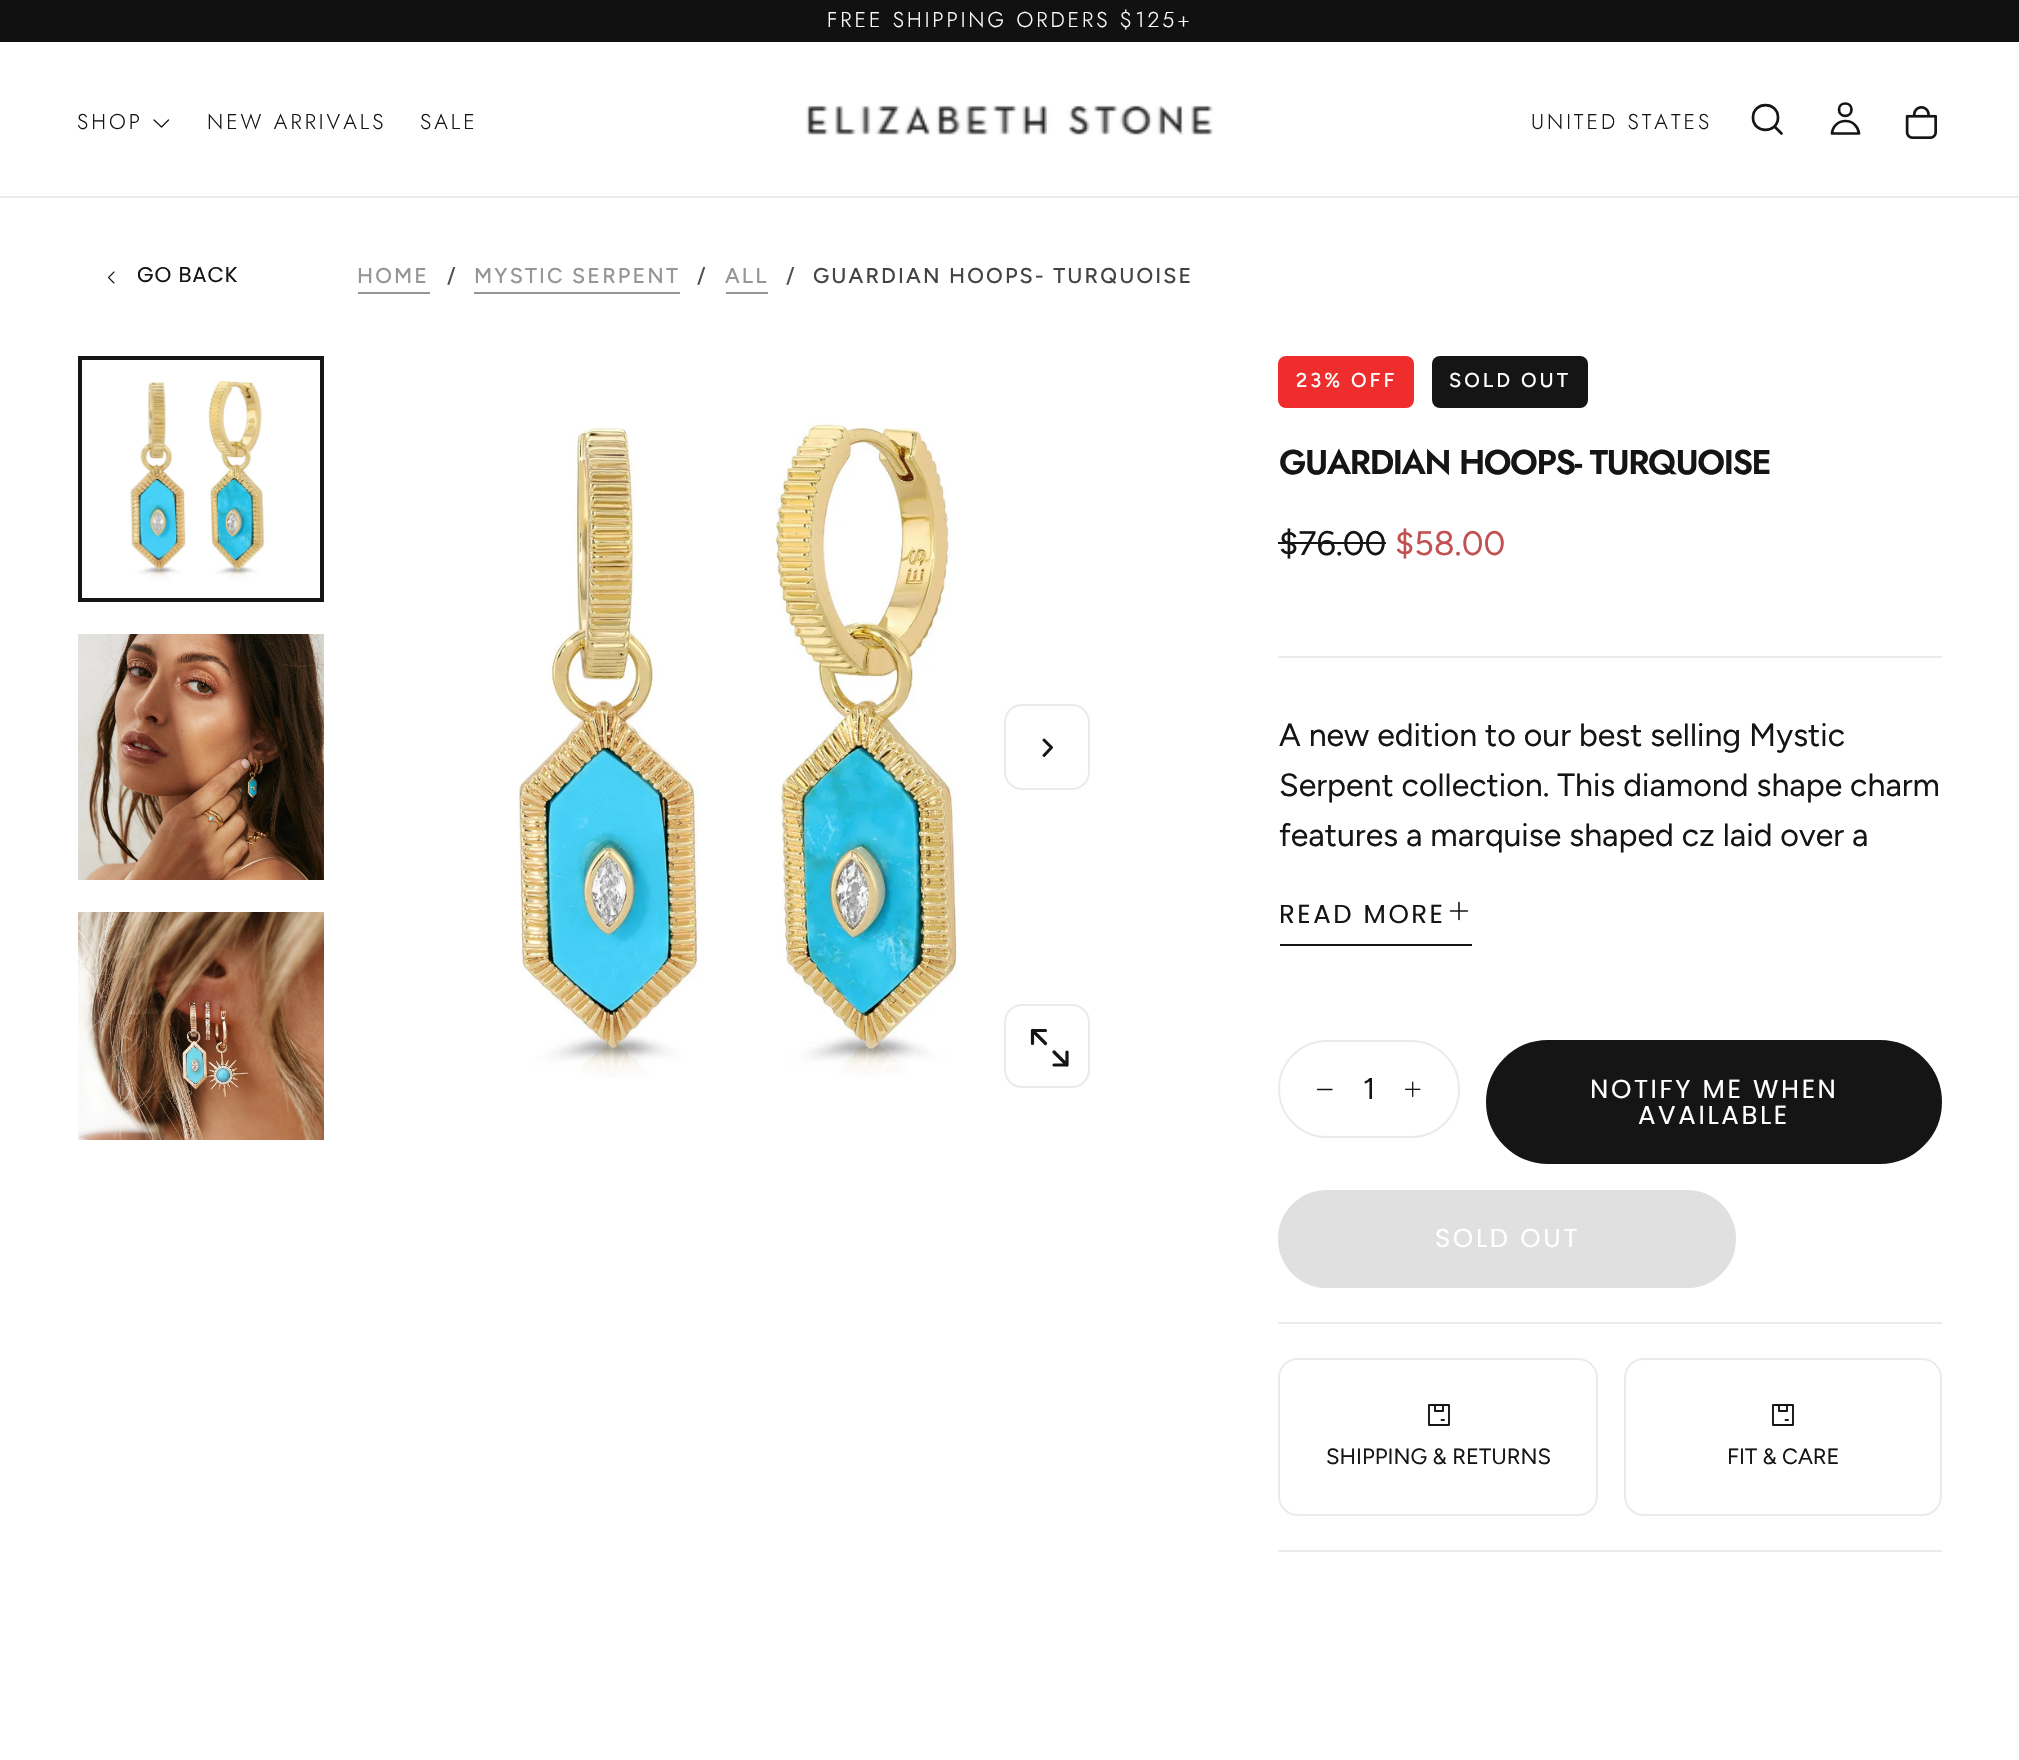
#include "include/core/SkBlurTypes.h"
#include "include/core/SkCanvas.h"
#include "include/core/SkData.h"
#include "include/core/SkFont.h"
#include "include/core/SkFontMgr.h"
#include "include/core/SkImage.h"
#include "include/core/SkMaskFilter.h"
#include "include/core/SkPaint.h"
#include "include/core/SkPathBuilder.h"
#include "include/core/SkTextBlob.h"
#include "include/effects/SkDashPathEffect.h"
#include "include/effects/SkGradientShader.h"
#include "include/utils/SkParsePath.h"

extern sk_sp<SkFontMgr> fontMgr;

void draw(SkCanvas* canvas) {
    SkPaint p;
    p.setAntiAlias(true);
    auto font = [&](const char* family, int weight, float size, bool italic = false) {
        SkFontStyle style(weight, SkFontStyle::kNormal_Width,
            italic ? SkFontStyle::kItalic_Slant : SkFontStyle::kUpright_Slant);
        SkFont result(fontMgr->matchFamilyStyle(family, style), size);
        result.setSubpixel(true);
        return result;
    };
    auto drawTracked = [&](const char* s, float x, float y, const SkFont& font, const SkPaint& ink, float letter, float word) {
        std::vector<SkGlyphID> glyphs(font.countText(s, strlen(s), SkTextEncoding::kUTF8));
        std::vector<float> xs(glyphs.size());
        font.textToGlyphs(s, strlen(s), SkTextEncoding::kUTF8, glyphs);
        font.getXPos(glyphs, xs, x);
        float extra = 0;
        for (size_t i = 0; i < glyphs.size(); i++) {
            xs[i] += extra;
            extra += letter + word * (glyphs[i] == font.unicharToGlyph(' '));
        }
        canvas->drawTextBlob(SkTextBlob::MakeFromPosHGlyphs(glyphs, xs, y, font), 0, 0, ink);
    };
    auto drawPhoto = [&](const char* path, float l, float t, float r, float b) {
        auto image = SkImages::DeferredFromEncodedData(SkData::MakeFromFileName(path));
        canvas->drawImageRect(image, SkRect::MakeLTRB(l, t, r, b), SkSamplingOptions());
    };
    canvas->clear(0xFFFFFFFF);
    p.setColor(0xFF111111);
    canvas->drawRect(SkRect::MakeLTRB(0, 0, 2019, 42), p);
    auto font1 = font("Jost", 300, 21.4f);
    p.setColor(0xFFFFFFFF);
    drawTracked("FREE SHIPPING ORDERS $125+", 827, 27, font1, p, 3, 0);
    p.setColor(0xFFEBEBEB);
    canvas->drawRect(SkRect::MakeLTRB(0, 196, 2019, 198), p);
    p.setColor(0xFF151515);
    drawTracked("SHOP", 77, 129, font1, p, 3, 0);
    p.setStyle(SkPaint::kStroke_Style);
    p.setStrokeWidth(1.3f);
    p.setStrokeCap(SkPaint::kRound_Cap);
    p.setStrokeJoin(SkPaint::kRound_Join);
    canvas->drawPath(SkPathBuilder().moveTo(168.5f, 120).lineTo(161.5f, 127).lineTo(154, 120).detach(), p);
    p.setStyle(SkPaint::kFill_Style);
    drawTracked("NEW ARRIVALS", 207, 129, font1, p, 3, 0);
    drawTracked("SALE", 420, 129, font1, p, 3, 0);
    drawPhoto("media/1.png", 806, 105, 1214, 136);
    drawTracked("UNITED STATES", 1531, 129, font1, p, 3, 0);
    p.setStyle(SkPaint::kStroke_Style);
    p.setStrokeWidth(2.7f);
    p.setStrokeJoin(SkPaint::kMiter_Join);
    canvas->drawPath(SkPathBuilder().moveTo(1781.5f, 133.5f).lineTo(1774.5f, 126.5f).moveTo(1778, 117.5f).cubicTo(1778, 134, 1753, 134, 1753, 117.5f).cubicTo(1753, 101, 1778, 101, 1778, 117.5f).close().detach(), p);
    p.setStrokeCap(SkPaint::kButt_Cap);
    p.setStrokeJoin(SkPaint::kRound_Join);
    canvas->drawPath(SkPathBuilder().moveTo(1851.5f, 109.5f).cubicTo(1851.5f, 118, 1839, 118, 1839, 109.5f).cubicTo(1839, 101.5f, 1851.5f, 101.5f, 1851.5f, 109.5f).close().moveTo(1845.5f, 121).cubicTo(1838, 121, 1832.5f, 126.5f, 1832, 133.5f).lineTo(1859, 133.5f).cubicTo(1858, 126.5f, 1853, 121, 1845.5f, 121).close().detach(), p);
    drawPhoto("media/2.png", 1905, 106, 1937, 139);
    p.setStrokeWidth(1.1f);
    p.setStrokeCap(SkPaint::kRound_Cap);
    canvas->drawPath(SkPathBuilder().moveTo(114, 283).lineTo(108.5f, 277.5f).lineTo(114, 272).detach(), p);
    auto font2 = font("Poppins", 400, 21.4f);
    p.setStyle(SkPaint::kFill_Style);
    drawTracked("GO BACK", 137, 282, font2, p, 0.75f, 0);
    auto font3 = font("Figtree", 500, 21.4f);
    p.setColor(0xFF969696);
    drawTracked("HOME", 357, 283, font3, p, 2.15f, 0);
    canvas->drawRect(SkRect::MakeLTRB(358, 292, 430, 294), p);
    p.setColor(0xFF505050);
    drawTracked("/", 447, 283, font3, p, 2.15f, 0);
    p.setColor(0xFF969696);
    drawTracked("MYSTIC SERPENT", 474, 283, font3, p, 2.15f, 0);
    canvas->drawRect(SkRect::MakeLTRB(474, 292, 680, 294), p);
    p.setColor(0xFF505050);
    drawTracked("/", 697, 283, font3, p, 2.15f, 0);
    p.setColor(0xFF969696);
    drawTracked("ALL", 725, 283, font3, p, 2.15f, 0);
    canvas->drawRect(SkRect::MakeLTRB(726, 292, 768, 294), p);
    p.setColor(0xFF505050);
    drawTracked("/", 786, 283, font3, p, 2.15f, 0);
    p.setColor(0xFF444444);
    drawTracked("GUARDIAN HOOPS- TURQUOISE", 813, 283, font3, p, 2.15f, 0);
    p.setStyle(SkPaint::kStroke_Style);
    p.setStrokeWidth(4);
    p.setStrokeCap(SkPaint::kButt_Cap);
    p.setStrokeJoin(SkPaint::kMiter_Join);
    p.setColor(0xFF151515);
    canvas->drawRect(SkRect::MakeLTRB(80, 358, 322, 600), p);
    drawPhoto("media/3.png", 82, 360, 320, 598);
    drawPhoto("media/4.png", 78, 634, 324, 880);
    drawPhoto("media/5.png", 78, 912, 324, 1140);
    drawPhoto("media/6.png", 518, 421, 959, 1078);
    p.setStrokeWidth(2);
    p.setColor(0xFFEBEBEB);
    canvas->drawRoundRect(SkRect::MakeLTRB(1005, 1005, 1089, 1087), 17, 17, p);
    p.setStrokeWidth(3.2f);
    p.setStrokeCap(SkPaint::kRound_Cap);
    p.setStrokeJoin(SkPaint::kRound_Join);
    p.setColor(0xFF151515);
    canvas->drawPath(SkPathBuilder().moveTo(1045.5f, 1043.5f).lineTo(1032.5f, 1030.5f).moveTo(1032.5f, 1043.5f).lineTo(1032.5f, 1030.5f).lineTo(1045.5f, 1030.5f).moveTo(1054, 1052).lineTo(1067, 1065).moveTo(1067, 1052).lineTo(1067, 1065).lineTo(1054, 1065).detach(), p);
    p.setStrokeWidth(2);
    p.setStrokeCap(SkPaint::kButt_Cap);
    p.setStrokeJoin(SkPaint::kMiter_Join);
    p.setColor(0xFFEBEBEB);
    canvas->drawRoundRect(SkRect::MakeLTRB(1005, 705, 1089, 789), 17, 17, p);
    p.setStrokeWidth(3);
    p.setStrokeCap(SkPaint::kRound_Cap);
    p.setStrokeJoin(SkPaint::kRound_Join);
    p.setColor(0xFF151515);
    canvas->drawPath(SkPathBuilder().moveTo(1044, 755.5f).lineTo(1051.5f, 747.5f).lineTo(1044, 740).detach(), p);
    p.setStyle(SkPaint::kFill_Style);
    p.setColor(0xFFEF2D2D);
    canvas->drawRoundRect(SkRect::MakeLTRB(1278, 356, 1414, 408), 8, 8, p);
    auto font4 = font("Figtree", 500, 20);
    p.setColor(0xFFFFFFFF);
    drawTracked("23% OFF", 1296, 387, font4, p, 3, 0);
    p.setColor(0xFF151515);
    canvas->drawRoundRect(SkRect::MakeLTRB(1432, 356, 1588, 408), 8, 8, p);
    p.setColor(0xFFFFFFFF);
    drawTracked("SOLD OUT", 1449, 387, font4, p, 3, 0);
    auto font5 = font("Jost", 600, 34.25f);
    p.setColor(0xFF151515);
    drawTracked("GUARDIAN HOOPS- TURQUOISE", 1279, 474, font5, p, -1.4f, 0);
    auto font6 = font("Figtree", 400, 34);
    canvas->drawString("$76.00", 1279, 555, font6, p);
    canvas->drawRect(SkRect::MakeLTRB(1278, 542, 1386, 544), p);
    p.setColor(0xFFC25151);
    canvas->drawString("$58.00", 1395, 555, font6, p);
    p.setColor(0xFFEBEBEB);
    canvas->drawRect(SkRect::MakeLTRB(1278, 656, 1942, 658), p);
    auto font7 = font("Figtree", 400, 32.1f);
    p.setColor(0xFF151515);
    {
        const struct { const char* s; float x, y; } items[] = {
            {"A new edition to our best selling Mystic", 1279, 746},
            {"Serpent collection. This diamond shape charm", 1279, 796},
            {"features a marquise shaped cz laid over a", 1279, 846},
        };
        for (auto [s, x, y] : items) {
            canvas->drawString(s, x, y, font7, p);
        }
    }
    auto font8 = font("Poppins", 400, 26);
    drawTracked("READ MORE", 1279, 923, font8, p, 2.5f, 0);
    p.setStyle(SkPaint::kStroke_Style);
    p.setStrokeWidth(1.6f);
    p.setStrokeJoin(SkPaint::kMiter_Join);
    canvas->drawPath(SkPathBuilder().moveTo(1459, 902.5f).lineTo(1459, 911).moveTo(1459, 911).lineTo(1459, 919.5f).moveTo(1459, 911).lineTo(1450.5f, 911).moveTo(1459, 911).lineTo(1467.5f, 911).detach(), p);
    p.setStyle(SkPaint::kFill_Style);
    canvas->drawRect(SkRect::MakeLTRB(1280, 944, 1472, 946), p);
    p.setStyle(SkPaint::kStroke_Style);
    p.setStrokeWidth(2);
    p.setStrokeCap(SkPaint::kButt_Cap);
    p.setColor(0xFFEBEBEB);
    canvas->drawRoundRect(SkRect::MakeLTRB(1279, 1041, 1459, 1137), 48, 48, p);
    p.setStrokeWidth(1.3f);
    p.setStrokeCap(SkPaint::kRound_Cap);
    p.setColor(0xFF151515);
    canvas->drawPath(SkPathBuilder().moveTo(1317.5f, 1089.5f).lineTo(1332, 1089.5f).detach(), p);
    auto font9 = font("Figtree", 400, 30);
    p.setStyle(SkPaint::kFill_Style);
    canvas->drawString("1", 1363, 1099, font9, p);
    drawPhoto("media/7.png", 1404, 1081, 1421, 1098);
    canvas->drawRoundRect(SkRect::MakeLTRB(1487, 1041, 1941, 1163), 61, 61, p);
    p.setStyle(SkPaint::kStroke_Style);
    p.setStrokeWidth(2);
    p.setStrokeCap(SkPaint::kButt_Cap);
    canvas->drawRoundRect(SkRect::MakeLTRB(1487, 1041, 1941, 1163), 61, 61, p);
    p.setStyle(SkPaint::kFill_Style);
    p.setColor(0xFFFFFFFF);
    drawTracked("NOTIFY ME WHEN", 1590, 1098, font8, p, 2.6f, 0);
    drawTracked("AVAILABLE", 1638, 1124, font8, p, 2.6f, 0);
    p.setColor(0xFFE0E0E0);
    canvas->drawRoundRect(SkRect::MakeLTRB(1279, 1191, 1735, 1287), 48, 48, p);
    p.setStyle(SkPaint::kStroke_Style);
    canvas->drawRoundRect(SkRect::MakeLTRB(1279, 1191, 1735, 1287), 48, 48, p);
    p.setStyle(SkPaint::kFill_Style);
    p.setColor(0xFFFFFFFF);
    drawTracked("SOLD OUT", 1435, 1247, font8, p, 2.6f, 0);
    p.setColor(0xFFEBEBEB);
    canvas->drawRect(SkRect::MakeLTRB(1278, 1322, 1942, 1324), p);
    p.setStyle(SkPaint::kStroke_Style);
    canvas->drawRoundRect(SkRect::MakeLTRB(1279, 1359, 1597, 1515), 19, 19, p);
    p.setStrokeWidth(1.9f);
    p.setStrokeCap(SkPaint::kRound_Cap);
    p.setStrokeJoin(SkPaint::kRound_Join);
    p.setColor(0xFF151515);
    canvas->drawPath(SkPathBuilder().moveTo(1435, 1405).lineTo(1435, 1411).lineTo(1443, 1411).lineTo(1443, 1405).moveTo(1441.5f, 1420).lineTo(1444, 1420).moveTo(1429, 1405).lineTo(1429, 1425).lineTo(1449, 1425).lineTo(1449, 1405).close().detach(), p);
    auto font10 = font("Figtree", 400, 22);
    p.setStyle(SkPaint::kFill_Style);
    canvas->drawString("SHIPPING & RETURNS", 1326, 1464, font10, p);
    p.setStyle(SkPaint::kStroke_Style);
    p.setStrokeWidth(2);
    p.setStrokeCap(SkPaint::kButt_Cap);
    p.setStrokeJoin(SkPaint::kMiter_Join);
    p.setColor(0xFFEBEBEB);
    canvas->drawRoundRect(SkRect::MakeLTRB(1625, 1359, 1941, 1515), 19, 19, p);
    p.setStrokeWidth(1.9f);
    p.setStrokeCap(SkPaint::kRound_Cap);
    p.setStrokeJoin(SkPaint::kRound_Join);
    p.setColor(0xFF151515);
    canvas->drawPath(SkPathBuilder().moveTo(1779, 1405).lineTo(1779, 1411).lineTo(1787, 1411).lineTo(1787, 1405).moveTo(1785.5f, 1420).lineTo(1788, 1420).moveTo(1773, 1405).lineTo(1773, 1425).lineTo(1793, 1425).lineTo(1793, 1405).close().detach(), p);
    p.setStyle(SkPaint::kFill_Style);
    canvas->drawString("FIT & CARE", 1727, 1464, font10, p);
    p.setColor(0xFFEBEBEB);
    canvas->drawRect(SkRect::MakeLTRB(1278, 1550, 1942, 1552), p);
}
